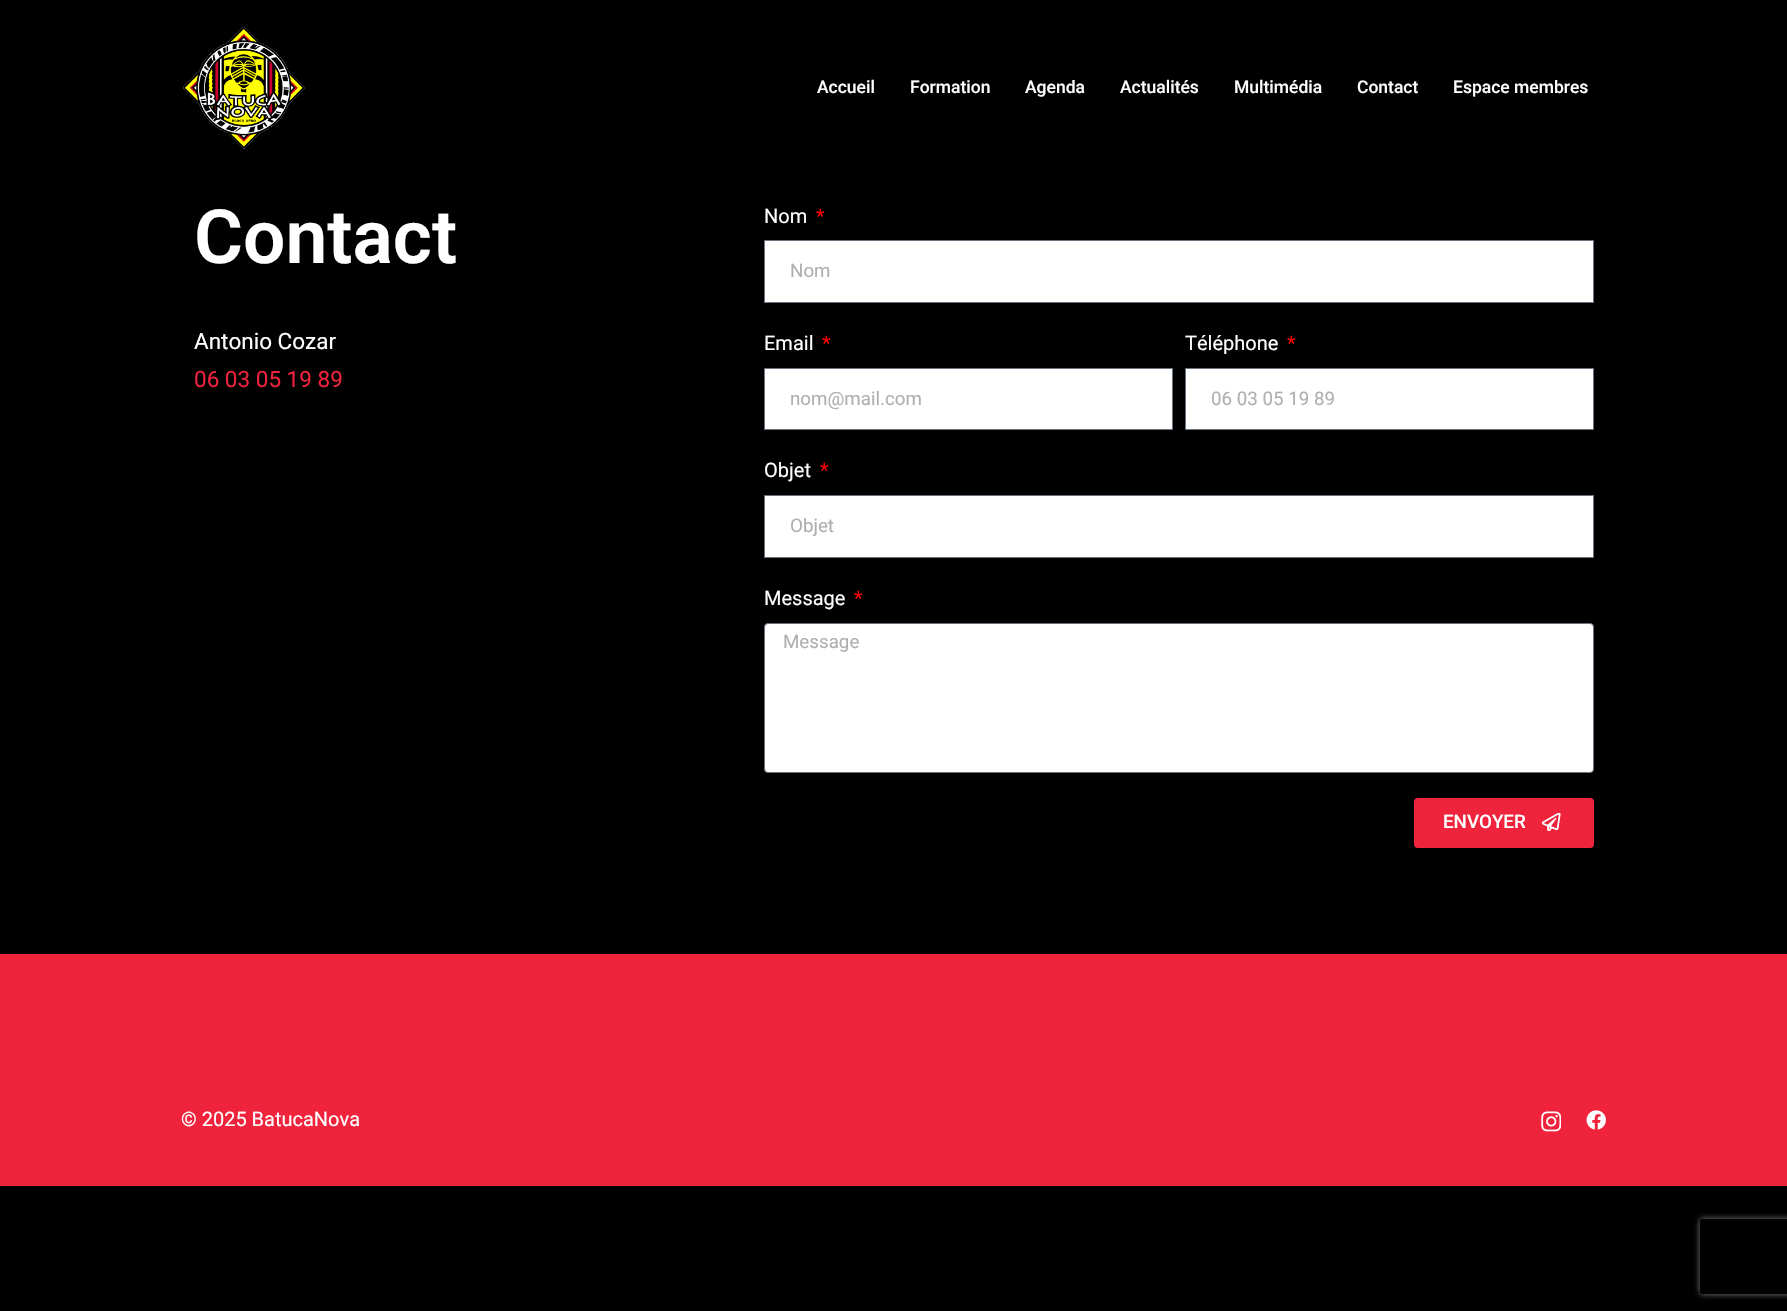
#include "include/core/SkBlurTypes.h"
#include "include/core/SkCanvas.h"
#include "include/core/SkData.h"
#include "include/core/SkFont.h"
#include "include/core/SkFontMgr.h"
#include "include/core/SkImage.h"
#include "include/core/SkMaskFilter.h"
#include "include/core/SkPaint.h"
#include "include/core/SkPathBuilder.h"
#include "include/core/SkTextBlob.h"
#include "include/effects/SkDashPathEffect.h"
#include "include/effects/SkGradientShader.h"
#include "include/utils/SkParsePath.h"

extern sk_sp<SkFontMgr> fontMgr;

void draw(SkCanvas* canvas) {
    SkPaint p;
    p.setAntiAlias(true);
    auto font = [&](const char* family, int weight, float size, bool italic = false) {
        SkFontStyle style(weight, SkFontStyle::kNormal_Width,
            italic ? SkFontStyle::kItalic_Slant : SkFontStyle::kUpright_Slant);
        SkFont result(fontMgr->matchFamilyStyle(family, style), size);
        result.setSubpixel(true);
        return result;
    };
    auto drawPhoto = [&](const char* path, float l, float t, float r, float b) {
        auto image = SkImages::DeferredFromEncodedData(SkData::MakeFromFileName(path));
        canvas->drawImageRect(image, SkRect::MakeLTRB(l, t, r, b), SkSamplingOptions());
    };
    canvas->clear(0xFF000000);
    drawPhoto("media/1.png", 183, 26, 305, 149);
    auto font1 = font("Roboto", 500, 17.5f);
    p.setColor(0xFFFFFFFF);
    {
        const struct { const char* s; float x, y; } items[] = {
            {"Accueil", 817, 93},
            {"Formation", 910, 93},
            {"Agenda", 1025, 93},
            {"Actualités", 1120, 93},
            {"Multimédia", 1234, 93},
            {"Contact", 1357, 93},
            {"Espace membres", 1453, 93},
        };
        for (auto [s, x, y] : items) {
            canvas->drawString(s, x, y, font1, p);
        }
    }
    auto font2 = font("Roboto", 600, 75);
    canvas->drawString("Contact", 194, 263, font2, p);
    auto font3 = font("Roboto", 400, 22.5f);
    canvas->drawString("Antonio Cozar", 194, 349, font3, p);
    p.setColor(0xFFEF233C);
    canvas->drawString("06 03 05 19 89", 194, 387, font3, p);
    auto font4 = font("Roboto", 400, 20);
    p.setColor(0xFFFFFFFF);
    canvas->drawString("Nom", 764, 223, font4, p);
    p.setColor(0xFFFF0000);
    canvas->drawString("*", 816, 223, font4, p);
    p.setColor(0xFFFFFFFF);
    canvas->drawRect(SkRect::MakeLTRB(764.5f, 240.5f, 1593.5f, 302.5f), p);
    p.setStyle(SkPaint::kStroke_Style);
    p.setStrokeWidth(1);
    p.setColor(0xFF69727D);
    canvas->drawRect(SkRect::MakeLTRB(764.5f, 240.5f, 1593.5f, 302.5f), p);
    auto font5 = font("Roboto", 400, 18.75f);
    p.setStyle(SkPaint::kFill_Style);
    p.setColor(0xFFAFAFAF);
    canvas->drawString("Nom", 790, 277, font5, p);
    p.setColor(0xFFFFFFFF);
    canvas->drawString("Email", 764, 350, font4, p);
    p.setColor(0xFFFF0000);
    canvas->drawString("*", 822, 350, font4, p);
    p.setColor(0xFFFFFFFF);
    canvas->drawRect(SkRect::MakeLTRB(764.5f, 368.5f, 1172.5f, 429.5f), p);
    p.setStyle(SkPaint::kStroke_Style);
    p.setColor(0xFF69727D);
    canvas->drawRect(SkRect::MakeLTRB(764.5f, 368.5f, 1172.5f, 429.5f), p);
    p.setStyle(SkPaint::kFill_Style);
    p.setColor(0xFFAFAFAF);
    canvas->drawString("nom@mail.com", 790, 405, font5, p);
    p.setColor(0xFFFFFFFF);
    canvas->drawString("Téléphone", 1185, 350, font4, p);
    p.setColor(0xFFFF0000);
    canvas->drawString("*", 1287, 350, font4, p);
    p.setColor(0xFFFFFFFF);
    canvas->drawRect(SkRect::MakeLTRB(1185.5f, 368.5f, 1593.5f, 429.5f), p);
    p.setStyle(SkPaint::kStroke_Style);
    p.setColor(0xFF69727D);
    canvas->drawRect(SkRect::MakeLTRB(1185.5f, 368.5f, 1593.5f, 429.5f), p);
    p.setStyle(SkPaint::kFill_Style);
    p.setColor(0xFFAFAFAF);
    canvas->drawString("06 03 05 19 89", 1211, 405, font5, p);
    p.setColor(0xFFFFFFFF);
    canvas->drawString("Objet", 764, 477, font4, p);
    p.setColor(0xFFFF0000);
    canvas->drawString("*", 820, 477, font4, p);
    p.setColor(0xFFFFFFFF);
    canvas->drawRect(SkRect::MakeLTRB(764.5f, 495.5f, 1593.5f, 557.5f), p);
    p.setStyle(SkPaint::kStroke_Style);
    p.setColor(0xFF69727D);
    canvas->drawRect(SkRect::MakeLTRB(764.5f, 495.5f, 1593.5f, 557.5f), p);
    p.setStyle(SkPaint::kFill_Style);
    p.setColor(0xFFAFAFAF);
    canvas->drawString("Objet", 790, 532, font5, p);
    p.setColor(0xFFFFFFFF);
    canvas->drawString("Message", 764, 605, font4, p);
    p.setColor(0xFFFF0000);
    canvas->drawString("*", 854, 605, font4, p);
    p.setColor(0xFFFFFFFF);
    canvas->drawRoundRect(SkRect::MakeLTRB(764.5f, 623.5f, 1593.5f, 772.5f), 3.5f, 3.5f, p);
    p.setStyle(SkPaint::kStroke_Style);
    p.setColor(0xFF69727D);
    canvas->drawRoundRect(SkRect::MakeLTRB(764.5f, 623.5f, 1593.5f, 772.5f), 3.5f, 3.5f, p);
    p.setStyle(SkPaint::kFill_Style);
    p.setColor(0xFFAFAFAF);
    canvas->drawString("Message", 783, 648, font5, p);
    p.setColor(0xFFEF233C);
    canvas->drawRoundRect(SkRect::MakeLTRB(1414, 798, 1594, 848), 4, 4, p);
    auto font6 = font("Roboto", 500, 18.75f);
    p.setColor(0xFFFFFFFF);
    canvas->drawString("ENVOYER", 1443, 828, font6, p);
    drawPhoto("media/2.png", 1541, 813, 1561, 831);
    p.setColor(0xFFEF233C);
    canvas->drawRect(SkRect::MakeLTRB(0, 954, 1787, 1186), p);
    p.setColor(0xFFFFFFFF);
    canvas->drawString("© 2025 BatucaNova", 181, 1126, font4, p);
    drawPhoto("media/3.png", 1541, 1111, 1561, 1132);
    drawPhoto("media/4.png", 1586, 1110, 1606, 1130);
    canvas->save();
    canvas->clipPath(SkPathBuilder(SkPathFillType::kEvenOdd).moveTo(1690, 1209).lineTo(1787, 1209).lineTo(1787, 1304).lineTo(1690, 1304).close().moveTo(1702.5f, 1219).lineTo(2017.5f, 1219).cubicTo(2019, 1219, 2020, 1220, 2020, 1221.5f).lineTo(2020, 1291.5f).cubicTo(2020, 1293, 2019, 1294, 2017.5f, 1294).lineTo(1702.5f, 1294).cubicTo(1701, 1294, 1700, 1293, 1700, 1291.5f).lineTo(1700, 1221.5f).cubicTo(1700, 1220, 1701, 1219, 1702.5f, 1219).close().detach(), true);
    p.setColor(0xFF808080);
    p.setMaskFilter(SkMaskFilter::MakeBlur(kNormal_SkBlurStyle, 3));
    canvas->drawRoundRect(SkRect::MakeLTRB(1700, 1219, 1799, 1294), 2.5f, 2.5f, p);
    p.setMaskFilter(nullptr);
    canvas->restore();
}
